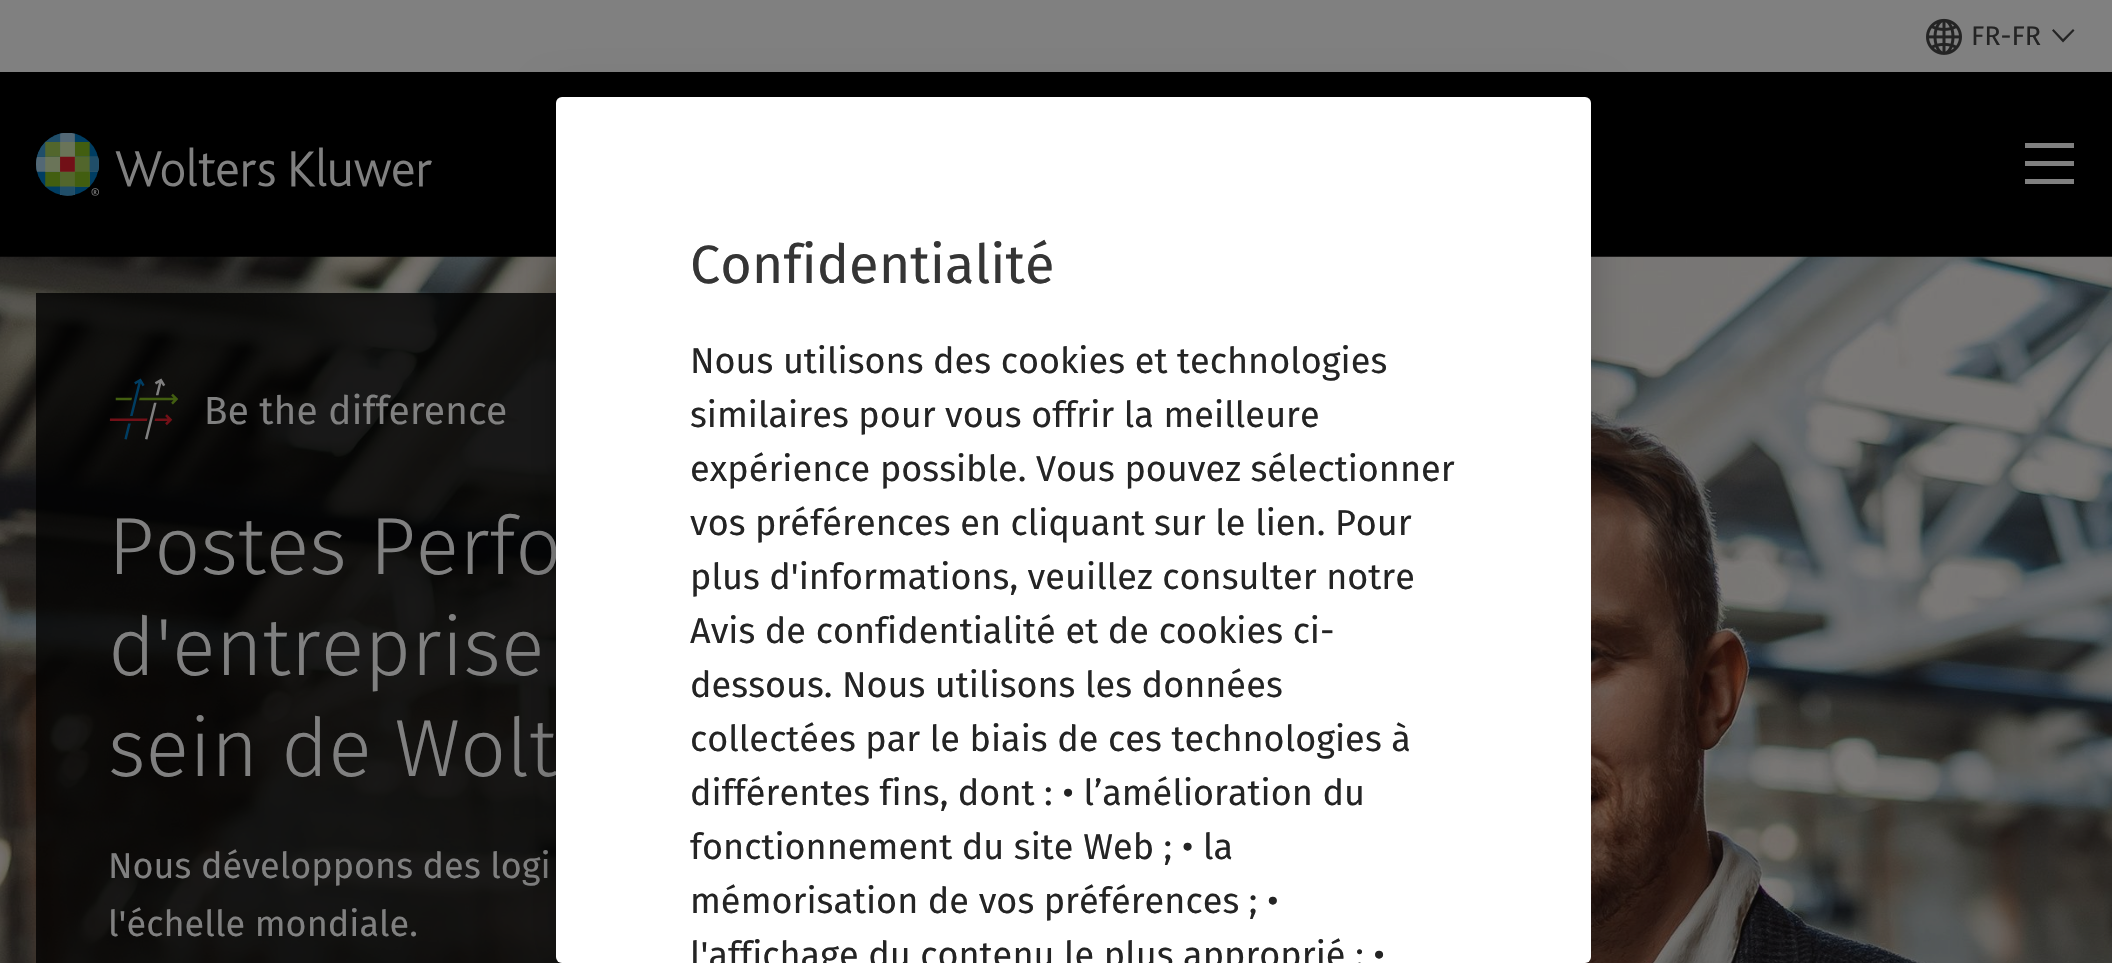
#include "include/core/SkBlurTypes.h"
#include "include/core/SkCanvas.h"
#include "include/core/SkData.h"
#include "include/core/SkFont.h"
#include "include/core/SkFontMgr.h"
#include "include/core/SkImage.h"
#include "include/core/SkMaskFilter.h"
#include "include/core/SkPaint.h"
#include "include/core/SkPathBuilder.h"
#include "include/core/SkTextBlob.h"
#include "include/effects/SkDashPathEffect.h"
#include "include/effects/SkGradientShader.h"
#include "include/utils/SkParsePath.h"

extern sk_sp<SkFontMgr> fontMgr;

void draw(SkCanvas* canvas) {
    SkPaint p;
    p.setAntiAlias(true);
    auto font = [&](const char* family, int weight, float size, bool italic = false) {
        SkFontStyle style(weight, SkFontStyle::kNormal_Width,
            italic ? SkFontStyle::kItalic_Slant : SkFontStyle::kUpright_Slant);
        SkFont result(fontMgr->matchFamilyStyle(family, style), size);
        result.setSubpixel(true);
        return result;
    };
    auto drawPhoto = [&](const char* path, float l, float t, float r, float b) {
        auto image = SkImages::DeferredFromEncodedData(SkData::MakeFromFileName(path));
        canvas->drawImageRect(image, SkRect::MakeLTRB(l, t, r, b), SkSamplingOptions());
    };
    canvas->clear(0xFF808080);
    drawPhoto("media/1.png", 1926, 18, 1962, 55);
    auto font1 = font("Fira Sans", 400, 27);
    p.setColor(0xFF242424);
    canvas->drawString("FR-FR", 1971, 45, font1, p);
    canvas->drawPath(SkPathBuilder().moveTo(2052, 30.5f).lineTo(2063, 42.5f).lineTo(2074.5f, 30.5f).lineTo(2073, 29).lineTo(2063, 39).lineTo(2053.5f, 29).close().detach(), p);
    p.setColor(0xFF000000);
    canvas->drawRect(SkRect::MakeLTRB(0, 72, 2112, 257), p);
    drawPhoto("media/2.png", 36, 133, 432, 196);
    p.setColor(0xFF808080);
    canvas->drawPath(SkPathBuilder().moveTo(2025, 143).lineTo(2025, 148).lineTo(2074, 148).lineTo(2074, 143).close().moveTo(2025, 166).lineTo(2074, 166).lineTo(2074, 161).lineTo(2025, 161).close().moveTo(2025, 184).lineTo(2074, 184).lineTo(2074, 179).lineTo(2025, 179).close().detach(), p);
    drawPhoto("media/3.png", 0, 256, 2112, 963);
    p.setColor(0xCC000000);
    canvas->drawRect(SkRect::MakeLTRB(36, 293, 562, 963), p);
    drawPhoto("media/4.png", 109, 378, 506, 440);
    auto font2 = font("Fira Sans", 300, 81);
    p.setColor(0xFF808080);
    {
        const struct { const char* s; float x, y; } items[] = {
            {"Postes Perfo", 108, 574},
            {"d'entreprise", 108, 675},
            {"sein de Wolt", 108, 776},
        };
        for (auto [s, x, y] : items) {
            canvas->drawString(s, x, y, font2, p);
        }
    }
    auto font3 = font("Fira Sans", 400, 36);
    canvas->drawString("Nous développons des logi", 108, 878, font3, p);
    canvas->drawString("l'échelle mondiale.", 108, 936, font3, p);
    p.setColor(0x33000000);
    p.setMaskFilter(SkMaskFilter::MakeBlur(kNormal_SkBlurStyle, 20));
    canvas->drawRoundRect(SkRect::MakeLTRB(556, 97, 1591, 963), 6, 6, p);
    p.setMaskFilter(nullptr);
    p.setColor(0xFFFFFFFF);
    canvas->drawRoundRect(SkRect::MakeLTRB(556, 97, 1591, 963), 6, 6, p);
    auto font4 = font("Fira Sans", 400, 54);
    p.setColor(0xFF353535);
    canvas->drawString("Confidentialité", 690, 283, font4, p);
    p.setColor(0xFF242424);
    {
        const struct { const char* s; float x, y; } items[] = {
            {"Nous utilisons des cookies et technologies", 690, 373},
            {"similaires pour vous offrir la meilleure", 690, 427},
            {"expérience possible. Vous pouvez sélectionner", 690, 481},
            {"vos préférences en cliquant sur le lien. Pour", 690, 535},
            {"plus d'informations, veuillez consulter notre", 690, 589},
            {"Avis de confidentialité et de cookies ci-", 690, 643},
            {"dessous. Nous utilisons les données", 690, 697},
            {"collectées par le biais de ces technologies à", 690, 751},
            {"différentes fins, dont : • l’amélioration du", 690, 805},
            {"fonctionnement du site Web ; • la", 690, 859},
            {"mémorisation de vos préférences ; •", 690, 913},
            {"l'affichage du contenu le plus approprié ; •", 690, 967},
        };
        for (auto [s, x, y] : items) {
            canvas->drawString(s, x, y, font3, p);
        }
    }
}
